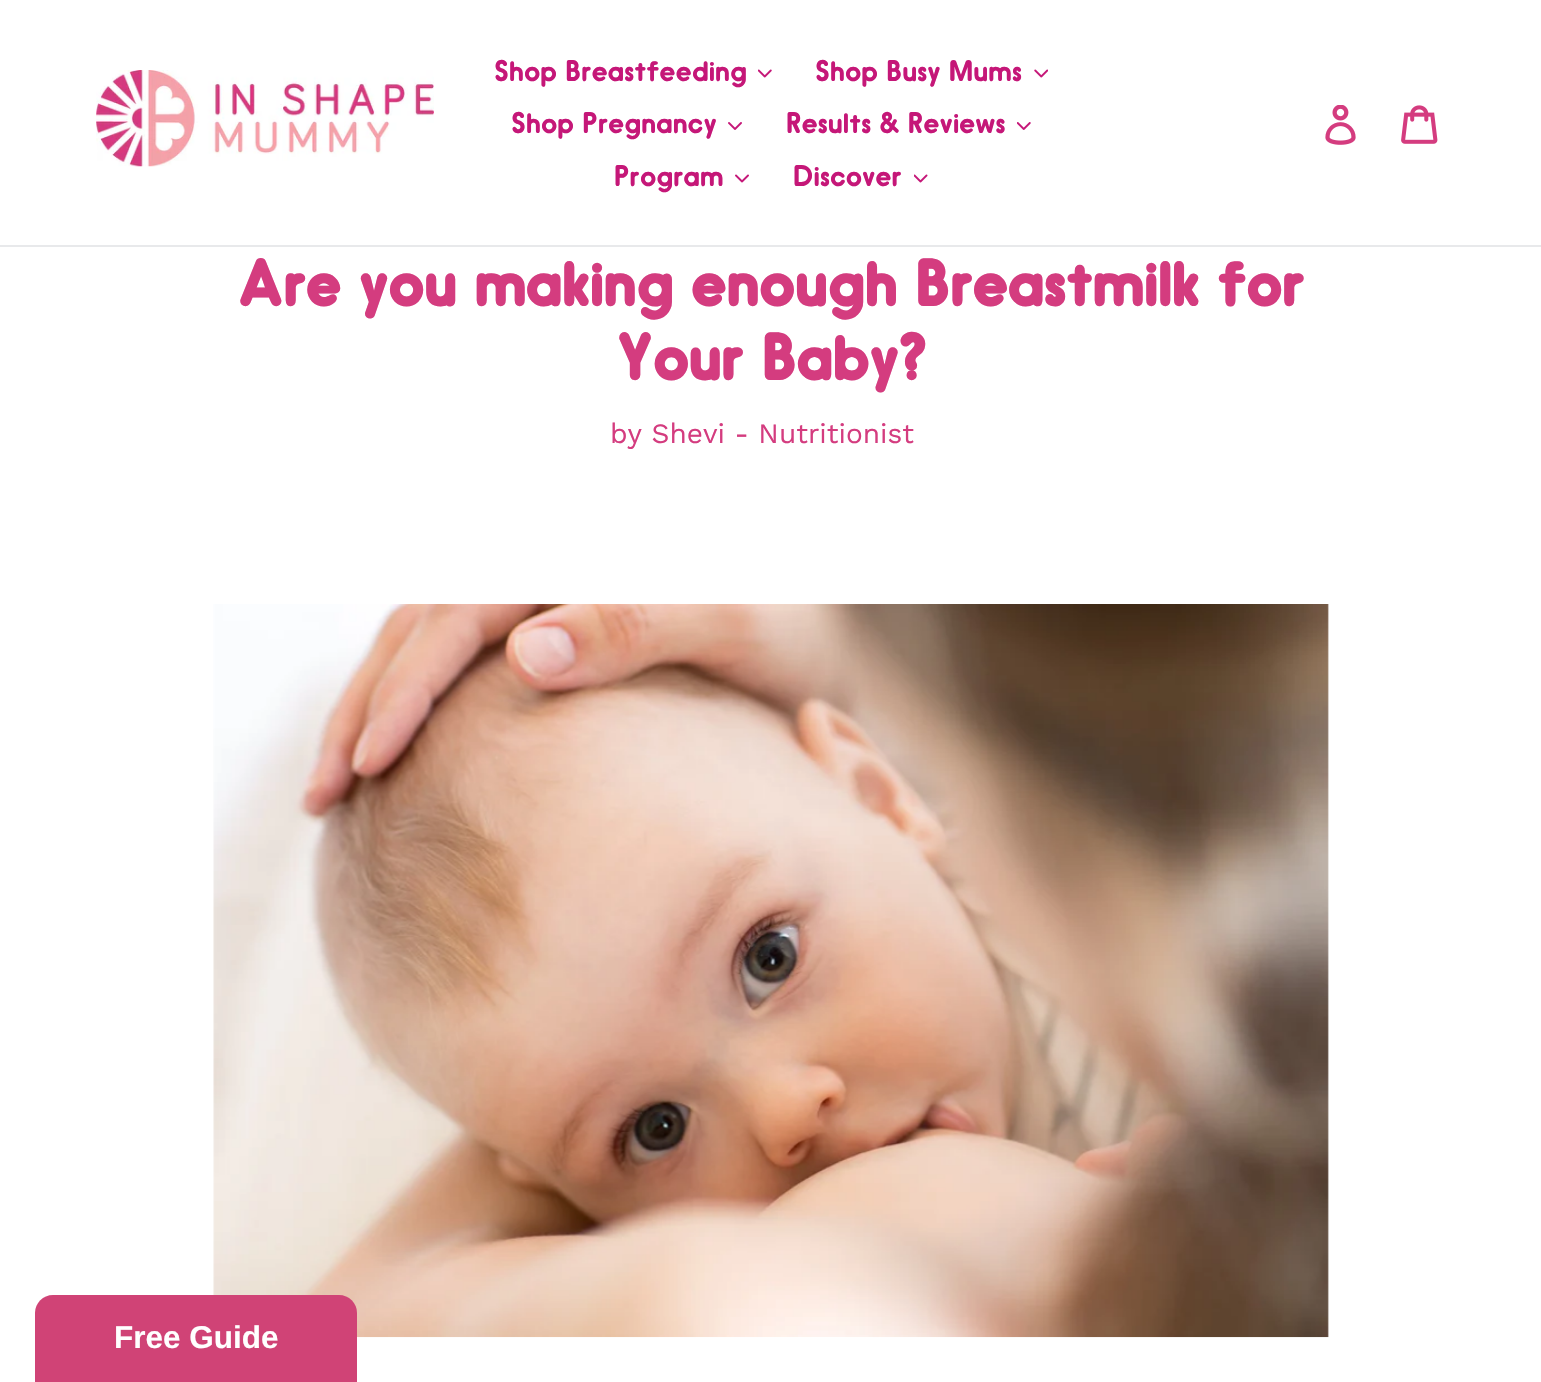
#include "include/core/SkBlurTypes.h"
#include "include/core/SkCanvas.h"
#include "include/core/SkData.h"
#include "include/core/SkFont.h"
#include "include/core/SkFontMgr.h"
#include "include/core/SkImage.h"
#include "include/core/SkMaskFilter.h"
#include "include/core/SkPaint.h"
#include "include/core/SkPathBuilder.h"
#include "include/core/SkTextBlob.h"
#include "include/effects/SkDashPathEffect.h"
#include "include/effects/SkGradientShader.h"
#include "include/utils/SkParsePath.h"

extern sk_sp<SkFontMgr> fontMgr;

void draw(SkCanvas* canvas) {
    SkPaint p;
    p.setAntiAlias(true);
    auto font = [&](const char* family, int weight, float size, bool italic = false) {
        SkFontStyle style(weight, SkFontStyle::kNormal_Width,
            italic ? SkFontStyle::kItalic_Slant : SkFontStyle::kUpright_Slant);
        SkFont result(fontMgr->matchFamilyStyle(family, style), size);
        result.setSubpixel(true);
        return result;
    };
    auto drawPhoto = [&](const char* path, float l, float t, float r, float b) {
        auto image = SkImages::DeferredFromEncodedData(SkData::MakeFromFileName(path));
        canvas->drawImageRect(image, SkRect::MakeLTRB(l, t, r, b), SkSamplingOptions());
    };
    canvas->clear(0xFFFFFFFF);
    p.setColor(0xFFE8E9EB);
    canvas->drawRect(SkRect::MakeLTRB(0, 245, 1541, 247), p);
    drawPhoto("media/1.png", 96, 70, 434, 167);
    auto font1 = font("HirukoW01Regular", 400, 28);
    p.setColor(0xFFC51778);
    canvas->drawString("Shop Breastfeeding", 494, 81, font1, p);
    drawPhoto("media/2.png", 758, 69, 772, 78);
    canvas->drawString("Shop Busy Mums", 815, 81, font1, p);
    drawPhoto("media/3.png", 1034, 69, 1048, 78);
    canvas->drawString("Shop Pregnancy", 511, 133, font1, p);
    drawPhoto("media/4.png", 728, 122, 742, 130);
    canvas->drawString("Results & Reviews", 786, 133, font1, p);
    drawPhoto("media/5.png", 1017, 122, 1031, 130);
    canvas->drawString("Program", 614, 186, font1, p);
    drawPhoto("media/6.png", 735, 174, 749, 183);
    canvas->drawString("Discover", 793, 186, font1, p);
    drawPhoto("media/7.png", 914, 174, 928, 183);
    drawPhoto("media/8.png", 1325, 105, 1356, 145);
    drawPhoto("media/9.png", 1401, 105, 1438, 144);
    auto font2 = font("HirukoW01Regular", 700, 61.25f);
    p.setColor(0xFFD43C7F);
    canvas->drawString("Are you making enough Breastmilk for", 237, 306, font2, p);
    canvas->drawString("Your Baby?", 616, 380, font2, p);
    auto font3 = font("Work Sans", 400, 28);
    canvas->drawString("by Shevi - Nutritionist", 610, 443, font3, p);
    drawPhoto("media/10.png", 213, 604, 1329, 1338);
    p.setColor(0xFFD04376);
    canvas->drawPath(SkPathBuilder().moveTo(53, 1295).lineTo(339, 1295).cubicTo(349, 1295, 357, 1303, 357, 1313).lineTo(357, 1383).lineTo(35, 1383).lineTo(35, 1313).cubicTo(35, 1303, 43, 1295, 53, 1295).close().detach(), p);
    auto font4 = font("Liberation Sans", 700, 31.5f);
    p.setColor(0xFFFFFFFF);
    canvas->drawString("Free Guide", 114, 1348, font4, p);
}
